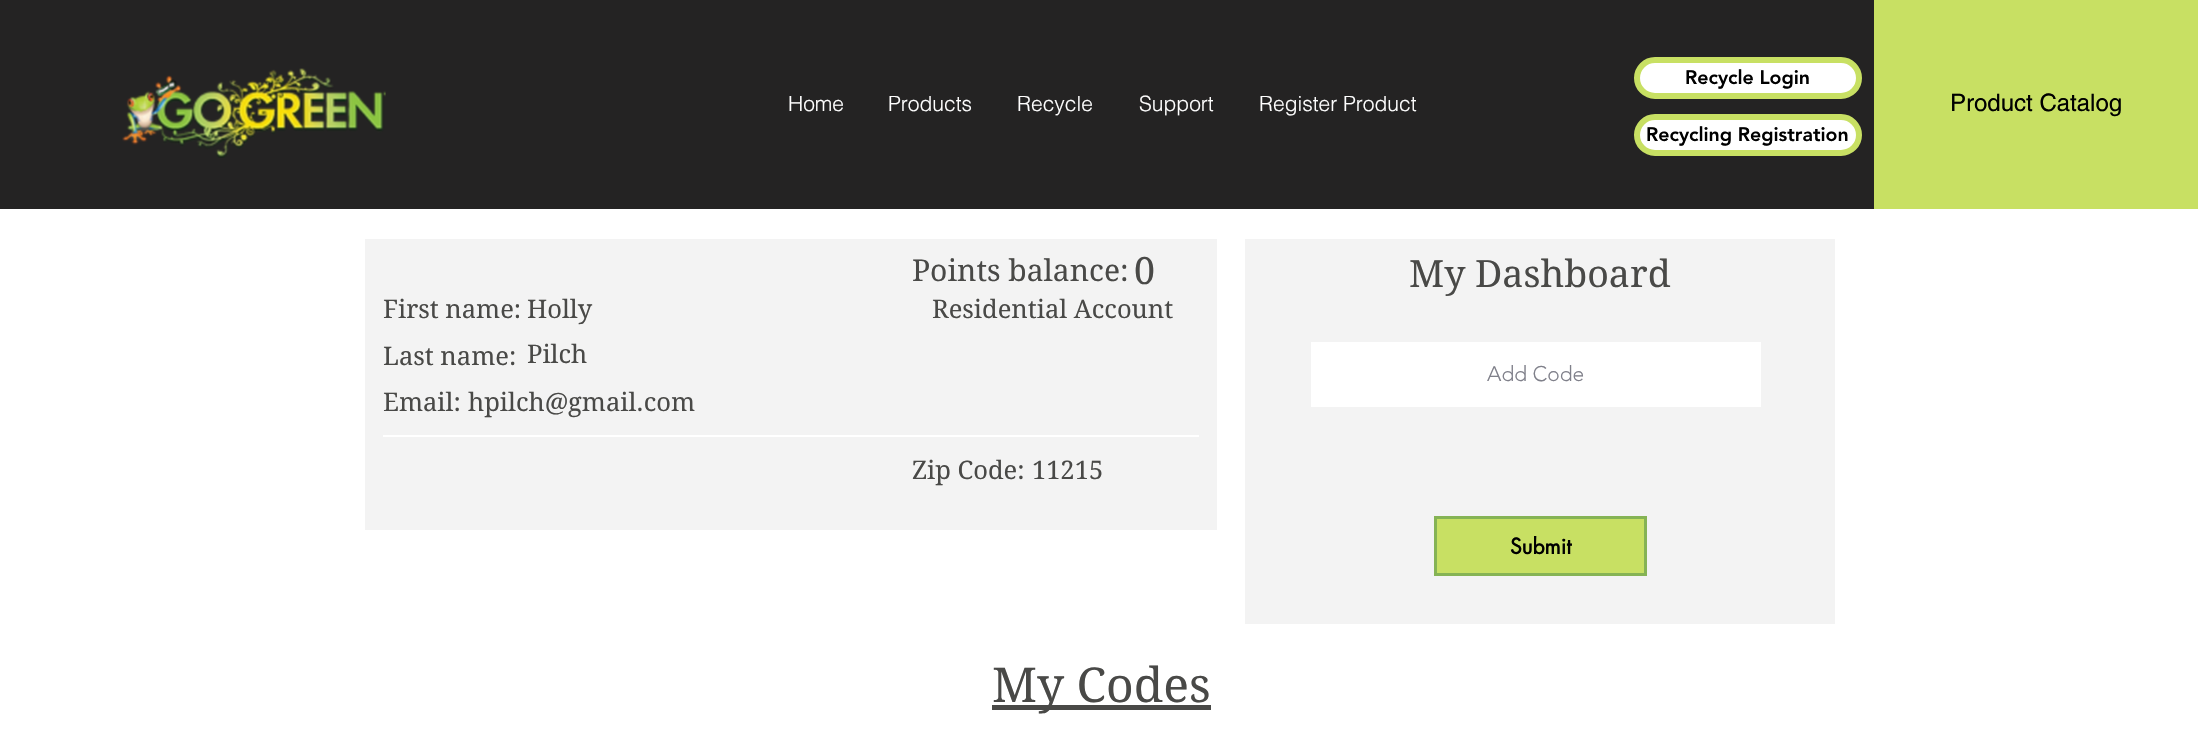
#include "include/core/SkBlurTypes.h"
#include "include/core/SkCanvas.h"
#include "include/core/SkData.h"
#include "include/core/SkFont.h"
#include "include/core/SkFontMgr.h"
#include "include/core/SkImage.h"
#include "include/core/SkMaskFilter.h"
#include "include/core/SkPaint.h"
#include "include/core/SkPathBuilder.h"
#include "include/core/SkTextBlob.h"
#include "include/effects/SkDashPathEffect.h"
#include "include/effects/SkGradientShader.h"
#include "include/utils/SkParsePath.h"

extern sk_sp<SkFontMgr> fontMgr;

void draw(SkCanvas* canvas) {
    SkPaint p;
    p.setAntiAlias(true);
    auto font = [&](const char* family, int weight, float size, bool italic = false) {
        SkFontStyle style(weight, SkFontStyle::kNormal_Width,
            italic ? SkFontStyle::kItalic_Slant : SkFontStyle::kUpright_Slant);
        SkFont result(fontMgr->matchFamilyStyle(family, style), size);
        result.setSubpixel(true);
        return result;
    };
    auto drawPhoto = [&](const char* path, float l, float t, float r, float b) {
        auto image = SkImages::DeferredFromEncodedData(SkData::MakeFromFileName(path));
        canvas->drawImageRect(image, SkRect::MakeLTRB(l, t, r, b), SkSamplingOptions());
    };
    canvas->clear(0xFFFFFFFF);
    p.setColor(0xFF242323);
    canvas->drawRect(SkRect::MakeLTRB(0, 0, 1874, 209), p);
    drawPhoto("media/1.png", 122, 68, 386, 158);
    auto font1 = font("helvetica", 300, 21);
    p.setColor(0xFFFFFFFF);
    {
        const struct { const char* s; float x, y; } items[] = {
            {"Home", 788, 111},
            {"Products", 888, 111},
            {"Recycle", 1017, 111},
            {"Support", 1139, 111},
            {"Register Product", 1259, 111},
        };
        for (auto [s, x, y] : items) {
            canvas->drawString(s, x, y, font1, p);
        }
    }
    canvas->drawRoundRect(SkRect::MakeLTRB(1637, 60, 1859, 96), 18, 18, p);
    p.setStyle(SkPaint::kStroke_Style);
    p.setStrokeWidth(6);
    p.setColor(0xFFC8E063);
    canvas->drawRoundRect(SkRect::MakeLTRB(1637, 60, 1859, 96), 18, 18, p);
    auto font2 = font("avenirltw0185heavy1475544", 900, 19.5f);
    p.setStyle(SkPaint::kFill_Style);
    p.setColor(0xFF000000);
    canvas->drawString("Recycle Login", 1685, 84, font2, p);
    p.setColor(0xFFFFFFFF);
    canvas->drawRoundRect(SkRect::MakeLTRB(1637, 117, 1859, 153), 18, 18, p);
    p.setStyle(SkPaint::kStroke_Style);
    p.setColor(0xFFC8E063);
    canvas->drawRoundRect(SkRect::MakeLTRB(1637, 117, 1859, 153), 18, 18, p);
    p.setStyle(SkPaint::kFill_Style);
    p.setColor(0xFF000000);
    canvas->drawString("Recycling Registration", 1646, 141, font2, p);
    p.setColor(0xFFC8E063);
    canvas->drawRect(SkRect::MakeLTRB(1874, 0, 2198, 209), p);
    auto font3 = font("helvetica", 400, 24);
    p.setColor(0xFF000000);
    canvas->drawString("Product Catalog", 1950, 111, font3, p);
    p.setColor(0xFFF3F3F3);
    canvas->drawRect(SkRect::MakeLTRB(365, 239, 1217, 530), p);
    auto font4 = font("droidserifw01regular", 400, 30);
    p.setColor(0xFF494947);
    canvas->drawString("Points balance:", 912, 281, font4, p);
    auto font5 = font("droidserifw01regular", 400, 37.5f);
    canvas->drawString("0", 1134, 284, font5, p);
    auto font6 = font("droidserifw01regular", 400, 25.5f);
    {
        const struct { const char* s; float x, y; } items[] = {
            {"First name:", 383, 318},
            {"Holly", 527, 318},
            {"Residential Account", 932, 318},
            {"Last name:", 383, 365},
            {"Pilch", 527, 363},
            {"Email:", 383, 411},
            {"hpilch@gmail.com", 468, 411},
        };
        for (auto [s, x, y] : items) {
            canvas->drawString(s, x, y, font6, p);
        }
    }
    p.setColor(0xFFFFFFFF);
    canvas->drawRect(SkRect::MakeLTRB(383, 435, 1199, 437), p);
    p.setColor(0xFF494947);
    canvas->drawString("Zip Code:", 912, 479, font6, p);
    canvas->drawString("11215", 1032, 479, font6, p);
    p.setColor(0xFFF3F3F3);
    canvas->drawRect(SkRect::MakeLTRB(1245, 239, 1835, 624), p);
    p.setColor(0xFF494947);
    canvas->drawString("My Dashboard", 1409, 287, font5, p);
    p.setColor(0xFFFFFFFF);
    canvas->drawRect(SkRect::MakeLTRB(1311, 342, 1761, 407), p);
    auto font7 = font("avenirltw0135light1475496", 300, 21);
    p.setColor(0xFF7F808A);
    canvas->drawString("Add Code", 1487, 381, font7, p);
    p.setColor(0xFFC8E063);
    canvas->drawRect(SkRect::MakeLTRB(1435.5f, 517.5f, 1645.5f, 574.5f), p);
    p.setStyle(SkPaint::kStroke_Style);
    p.setStrokeWidth(3);
    p.setColor(0xFF85B354);
    canvas->drawRect(SkRect::MakeLTRB(1435.5f, 517.5f, 1645.5f, 574.5f), p);
    auto font8 = font("futura", 700, 21);
    p.setStyle(SkPaint::kFill_Style);
    p.setColor(0xFF000000);
    canvas->drawString("Submit", 1510, 554, font8, p);
    p.setColor(0xFF494947);
    canvas->drawRect(SkRect::MakeLTRB(992, 705, 1211, 710), p);
    auto font9 = font("droidserifw01regular", 400, 48);
    canvas->drawString("My Codes", 992, 702, font9, p);
}
